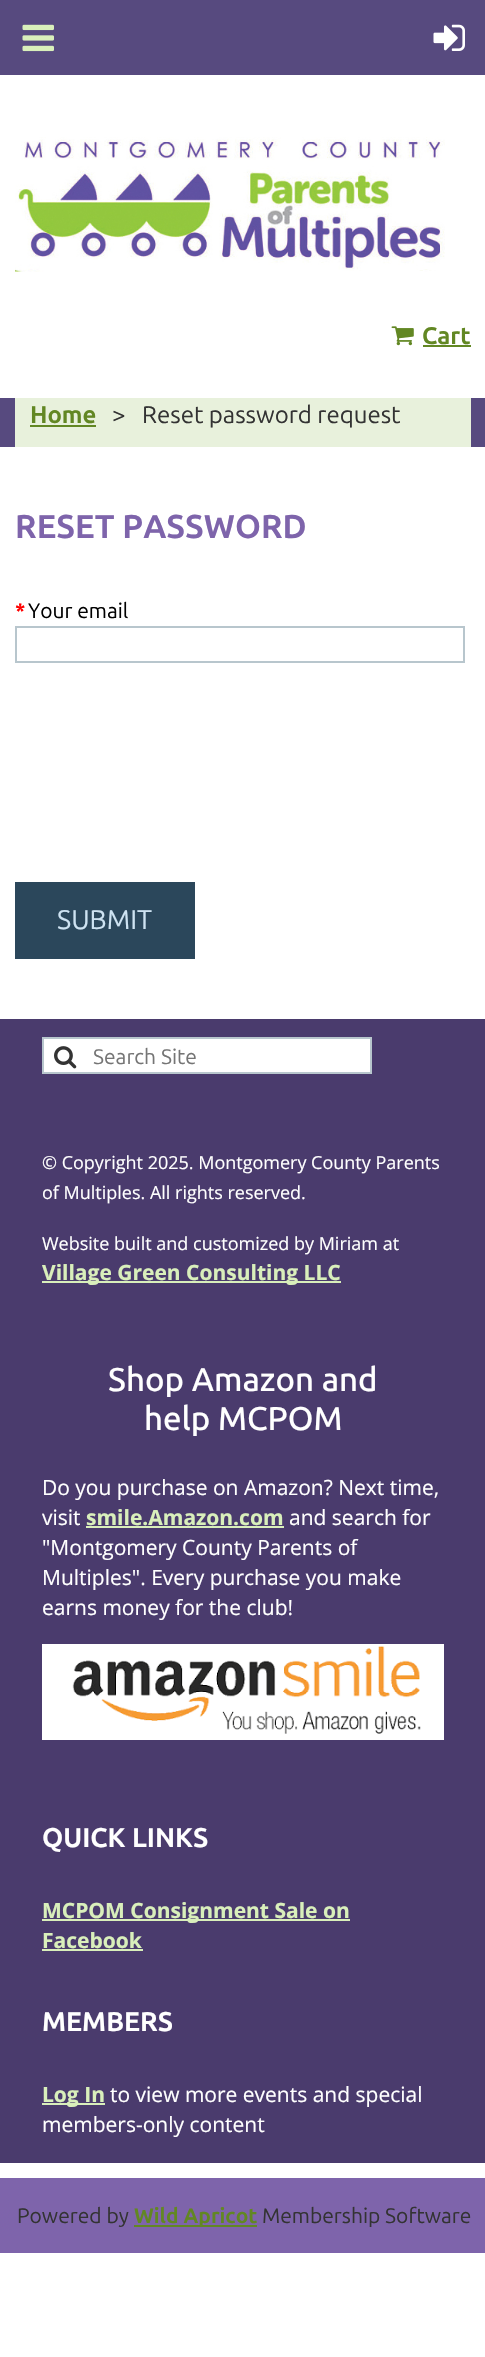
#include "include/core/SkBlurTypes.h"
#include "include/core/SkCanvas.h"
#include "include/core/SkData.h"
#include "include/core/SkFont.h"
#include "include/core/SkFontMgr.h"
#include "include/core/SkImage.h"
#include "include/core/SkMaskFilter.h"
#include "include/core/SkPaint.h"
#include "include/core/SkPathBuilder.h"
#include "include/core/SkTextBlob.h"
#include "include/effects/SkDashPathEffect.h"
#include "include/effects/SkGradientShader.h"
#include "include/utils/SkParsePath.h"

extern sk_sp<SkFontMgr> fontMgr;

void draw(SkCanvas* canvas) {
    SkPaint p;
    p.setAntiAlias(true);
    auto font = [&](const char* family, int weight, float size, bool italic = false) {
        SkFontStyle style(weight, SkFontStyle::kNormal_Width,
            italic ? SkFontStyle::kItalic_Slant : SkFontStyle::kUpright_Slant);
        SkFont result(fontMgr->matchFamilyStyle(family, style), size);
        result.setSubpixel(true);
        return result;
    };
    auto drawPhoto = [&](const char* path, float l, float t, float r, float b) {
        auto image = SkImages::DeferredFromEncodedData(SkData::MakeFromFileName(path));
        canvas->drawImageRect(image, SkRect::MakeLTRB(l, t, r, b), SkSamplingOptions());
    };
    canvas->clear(0xFFFFFFFF);
    p.setColor(0xFF574A7F);
    canvas->drawRect(SkRect::MakeLTRB(0, 0, 485, 75), p);
    drawPhoto("media/1.png", 22, 24, 54, 52);
    drawPhoto("media/2.png", 433, 24, 465, 51);
    drawPhoto("media/3.png", 15, 137, 445, 272);
    drawPhoto("media/4.png", 391, 326, 414, 346);
    auto font1 = font("Ubuntu", 700, 24);
    p.setColor(0xFF628723);
    canvas->drawString("Cart", 422, 344, font1, p);
    {
        const struct { float l, t, r, b; SkColor color; } items[] = {
            {423, 345, 471, 347, 0xFF628723},
            {0, 398, 485, 447, 0xFF574A7F},
            {15, 398, 471, 447, 0xFFE8F1DC},
        };
        for (auto [l, t, r, b, color] : items) {
            p.setColor(color);
            canvas->drawRect(SkRect::MakeLTRB(l, t, r, b), p);
        }
    }
    p.setColor(0xFF628723);
    canvas->drawString("Home", 30, 423, font1, p);
    canvas->drawRect(SkRect::MakeLTRB(30, 425, 96, 427), p);
    auto font2 = font("Ubuntu", 400, 24);
    p.setColor(0xFF333333);
    canvas->drawString(">", 112, 423, font2, p);
    canvas->drawString("Reset password request", 142, 423, font2, p);
    auto font3 = font("Ubuntu", 700, 33);
    p.setColor(0xFF7E64AB);
    canvas->drawString("RESET PASSWORD", 15, 538, font3, p);
    auto font4 = font("Ubuntu", 700, 21);
    p.setColor(0xFFFF0000);
    canvas->drawString("*", 15, 618, font4, p);
    auto font5 = font("Ubuntu", 400, 21);
    p.setColor(0xFF000000);
    canvas->drawString("Your email", 28, 618, font5, p);
    p.setStyle(SkPaint::kStroke_Style);
    p.setStrokeWidth(2);
    p.setColor(0xFFB8C6CD);
    canvas->drawRect(SkRect::MakeLTRB(16, 627, 464, 662), p);
    p.setStyle(SkPaint::kFill_Style);
    p.setColor(0xFF2B475B);
    canvas->drawRect(SkRect::MakeLTRB(15, 882, 195, 959), p);
    auto font6 = font("Ubuntu", 400, 27);
    p.setColor(0xFFCEE3F2);
    canvas->drawString("SUBMIT", 57, 929, font6, p);
    p.setColor(0xFF4A3B6D);
    canvas->drawRect(SkRect::MakeLTRB(0, 1019, 485, 2163), p);
    p.setColor(0xFFFFFFFF);
    canvas->drawRect(SkRect::MakeLTRB(43, 1038, 371, 1073), p);
    p.setStyle(SkPaint::kStroke_Style);
    p.setColor(0xFFB8C6CD);
    canvas->drawRect(SkRect::MakeLTRB(43, 1038, 371, 1073), p);
    drawPhoto("media/5.png", 54, 1046, 77, 1069);
    p.setStyle(SkPaint::kFill_Style);
    p.setColor(0xFF757575);
    canvas->drawString("Search Site", 93, 1064, font5, p);
    auto font7 = font("Open Sans", 400, 18);
    p.setColor(0xFFFFFFFF);
    {
        const struct { const char* s; float x, y; } items[] = {
            {"© Copyright 2025. Montgomery County Parents", 42, 1169},
            {"of Multiples. All rights reserved.", 42, 1199},
            {"Website built and customized by Miriam at", 42, 1250},
        };
        for (auto [s, x, y] : items) {
            canvas->drawString(s, x, y, font7, p);
        }
    }
    p.setColor(0xFFD9EFBB);
    canvas->drawRect(SkRect::MakeLTRB(42, 1281, 341, 1283), p);
    auto font8 = font("Open Sans", 700, 21);
    canvas->drawString("Village Green Consulting LLC", 42, 1280, font8, p);
    auto font9 = font("Ubuntu", 500, 33);
    p.setColor(0xFFFFFFFF);
    canvas->drawString("Shop Amazon and", 108, 1391, font9, p);
    canvas->drawString("help MCPOM", 144, 1430, font9, p);
    auto font10 = font("Open Sans", 400, 21);
    canvas->drawString("Do you purchase on Amazon? Next time,", 42, 1495, font10, p);
    canvas->drawString("visit", 42, 1525, font10, p);
    p.setColor(0xFFD9EFBB);
    canvas->drawString("smile.Amazon.com", 86, 1525, font8, p);
    canvas->drawRect(SkRect::MakeLTRB(86, 1526, 284, 1528), p);
    p.setColor(0xFFFFFFFF);
    {
        const struct { const char* s; float x, y; } items[] = {
            {"and search for", 289, 1525},
            {"\"Montgomery County Parents of", 42, 1555},
            {"Multiples\". Every purchase you make", 42, 1585},
            {"earns money for the club!", 42, 1615},
        };
        for (auto [s, x, y] : items) {
            canvas->drawString(s, x, y, font10, p);
        }
    }
    drawPhoto("media/6.png", 42, 1644, 444, 1740);
    auto font11 = font("Ubuntu", 700, 27);
    canvas->drawString("QUICK LINKS", 42, 1847, font11, p);
    p.setColor(0xFFD9EFBB);
    canvas->drawRect(SkRect::MakeLTRB(42, 1919, 350, 1921), p);
    canvas->drawString("MCPOM Consignment Sale on", 42, 1918, font8, p);
    canvas->drawString("Facebook", 42, 1948, font8, p);
    canvas->drawRect(SkRect::MakeLTRB(42, 1949, 143, 1951), p);
    p.setColor(0xFFFFFFFF);
    canvas->drawString("MEMBERS", 42, 2031, font11, p);
    p.setColor(0xFFD9EFBB);
    canvas->drawRect(SkRect::MakeLTRB(42, 2103, 105, 2105), p);
    canvas->drawString("Log In", 42, 2102, font8, p);
    p.setColor(0xFFFFFFFF);
    canvas->drawString("to view more events and special", 110, 2102, font10, p);
    canvas->drawString("members-only content", 42, 2132, font10, p);
    p.setColor(0xFF7E64AB);
    canvas->drawRect(SkRect::MakeLTRB(0, 2178, 485, 2253), p);
    p.setColor(0xFF333333);
    canvas->drawString("Powered by", 17, 2223, font5, p);
    p.setColor(0xFF628723);
    canvas->drawRect(SkRect::MakeLTRB(134, 2225, 257, 2227), p);
    canvas->drawString("Wild Apricot", 134, 2223, font4, p);
    p.setColor(0xFF333333);
    canvas->drawString("Membership Software", 262, 2223, font5, p);
}
